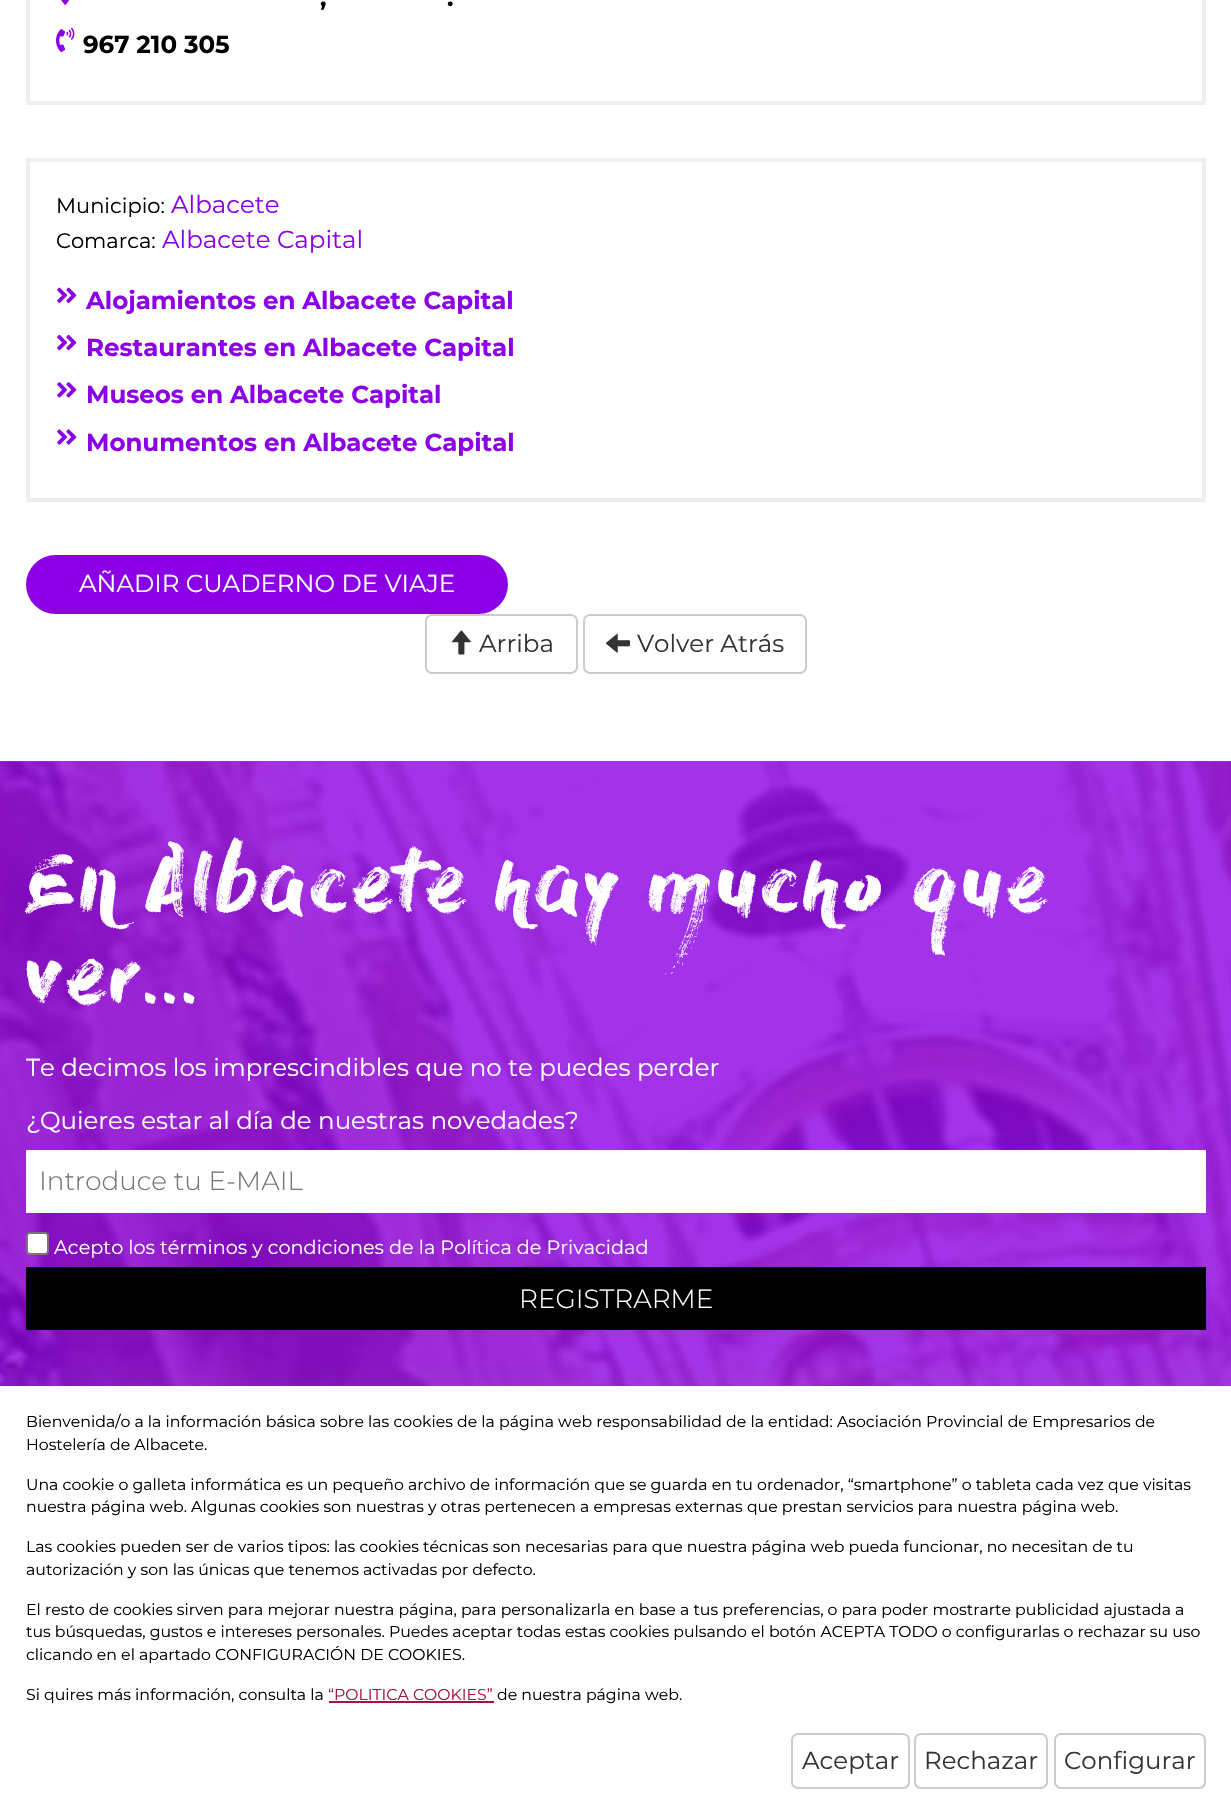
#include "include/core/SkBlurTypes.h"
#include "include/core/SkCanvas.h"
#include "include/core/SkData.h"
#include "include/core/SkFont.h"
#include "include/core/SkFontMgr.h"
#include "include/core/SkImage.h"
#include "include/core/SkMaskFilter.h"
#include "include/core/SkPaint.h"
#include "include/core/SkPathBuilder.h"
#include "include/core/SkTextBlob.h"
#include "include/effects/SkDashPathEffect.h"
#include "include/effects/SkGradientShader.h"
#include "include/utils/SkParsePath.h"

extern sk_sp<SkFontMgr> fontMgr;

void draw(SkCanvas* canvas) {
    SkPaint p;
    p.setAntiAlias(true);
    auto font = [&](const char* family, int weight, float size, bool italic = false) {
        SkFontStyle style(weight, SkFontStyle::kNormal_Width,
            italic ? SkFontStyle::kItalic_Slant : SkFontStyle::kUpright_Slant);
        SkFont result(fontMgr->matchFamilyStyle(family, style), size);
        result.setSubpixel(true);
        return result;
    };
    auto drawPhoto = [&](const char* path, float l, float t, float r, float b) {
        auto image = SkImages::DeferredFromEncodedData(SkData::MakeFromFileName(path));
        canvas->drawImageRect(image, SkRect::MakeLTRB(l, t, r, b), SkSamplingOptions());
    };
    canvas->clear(0xFFFFFFFF);
    p.setColor(0xFFA233E9);
    canvas->drawRect(SkRect::MakeLTRB(0, 761, 1231, 762), p);
    p.setStyle(SkPaint::kStroke_Style);
    p.setStrokeWidth(4);
    p.setColor(0xFFEFEFEF);
    canvas->drawRect(SkRect::MakeLTRB(28, -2, 1204, 103), p);
    drawPhoto("media/1.png", 61, 0, 70, 5);
    auto font1 = font("Montserrat", 700, 24.5f);
    p.setStyle(SkPaint::kFill_Style);
    p.setColor(0xFF000000);
    canvas->drawString(",", 320, 6, font1, p);
    canvas->drawString(".", 447, 6, font1, p);
    drawPhoto("media/2.png", 56, 28, 75, 52);
    canvas->drawString("967 210 305", 83, 53, font1, p);
    p.setStyle(SkPaint::kStroke_Style);
    p.setColor(0xFFEFEFEF);
    canvas->drawRect(SkRect::MakeLTRB(28, 160, 1204, 500), p);
    auto font2 = font("Montserrat", 400, 21);
    p.setStyle(SkPaint::kFill_Style);
    p.setColor(0xFF000000);
    canvas->drawString("Municipio:", 56, 213, font2, p);
    auto font3 = font("Montserrat", 400, 24.5f);
    p.setColor(0xFF8B00E4);
    canvas->drawString("Albacete", 171, 213, font3, p);
    p.setColor(0xFF000000);
    canvas->drawString("Comarca:", 56, 248, font2, p);
    p.setColor(0xFF8B00E4);
    canvas->drawString("Albacete Capital", 162, 248, font3, p);
    drawPhoto("media/3.png", 57, 287, 77, 303);
    canvas->drawString("Alojamientos en Albacete Capital", 86, 309, font1, p);
    drawPhoto("media/4.png", 57, 334, 77, 351);
    canvas->drawString("Restaurantes en Albacete Capital", 86, 356, font1, p);
    drawPhoto("media/5.png", 57, 382, 77, 398);
    canvas->drawString("Museos en Albacete Capital", 86, 403, font1, p);
    drawPhoto("media/6.png", 57, 429, 77, 445);
    canvas->drawString("Monumentos en Albacete Capital", 86, 451, font1, p);
    canvas->drawRoundRect(SkRect::MakeLTRB(26, 555, 508, 614), 29.5f, 29.5f, p);
    p.setColor(0xFFFFFFFF);
    canvas->drawString("AÑADIR CUADERNO DE VIAJE", 79, 592, font3, p);
    p.setStyle(SkPaint::kStroke_Style);
    p.setStrokeWidth(2);
    p.setColor(0xFFCCCCCC);
    canvas->drawRoundRect(SkRect::MakeLTRB(426, 615, 577, 673), 6, 6, p);
    drawPhoto("media/7.png", 451, 630, 471, 655);
    p.setStyle(SkPaint::kFill_Style);
    p.setColor(0xFF333333);
    canvas->drawString("Arriba", 479, 652, font3, p);
    p.setStyle(SkPaint::kStroke_Style);
    p.setColor(0xFFCCCCCC);
    canvas->drawRoundRect(SkRect::MakeLTRB(584, 615, 806, 673), 6, 6, p);
    drawPhoto("media/8.png", 606, 633, 630, 653);
    p.setStyle(SkPaint::kFill_Style);
    p.setColor(0xFF333333);
    canvas->drawString("Volver Atrás", 637, 652, font3, p);
    drawPhoto("media/9.png", 0, 761, 1231, 1386);
    auto font4 = font("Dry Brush", 400, 84);
    p.setColor(0xFFFFFFFF);
    canvas->drawString("En Albacete hay mucho que", 26, 911, font4, p);
    canvas->drawString("ver...", 26, 1003, font4, p);
    canvas->drawString("Te decimos los imprescindibles que no te puedes perder", 26, 1076, font3, p);
    canvas->drawString("¿Quieres estar al día de nuestras novedades?", 26, 1129, font3, p);
    canvas->drawRect(SkRect::MakeLTRB(26, 1150, 1206, 1213), p);
    auto font5 = font("Montserrat", 300, 26.25f);
    p.setColor(0xFF757575);
    canvas->drawString("Introduce tu E-MAIL", 39, 1190, font5, p);
    p.setColor(0xFFFFFFFF);
    canvas->drawRoundRect(SkRect::MakeLTRB(27, 1233, 48, 1254), 3, 3, p);
    p.setStyle(SkPaint::kStroke_Style);
    p.setColor(0xFF767676);
    canvas->drawRoundRect(SkRect::MakeLTRB(27, 1233, 48, 1254), 3, 3, p);
    auto font6 = font("Montserrat", 400, 19.25f);
    p.setStyle(SkPaint::kFill_Style);
    p.setColor(0xFFFFFFFF);
    canvas->drawString("Acepto los términos y condiciones de la Política de Privacidad", 54, 1254, font6, p);
    p.setColor(0xFF000000);
    canvas->drawRect(SkRect::MakeLTRB(26, 1267, 1206, 1330), p);
    p.setColor(0xFFFFFFFF);
    canvas->drawString("REGISTRARME", 519, 1308, font5, p);
    p.setColor(0x26828486);
    p.setMaskFilter(SkMaskFilter::MakeBlur(kNormal_SkBlurStyle, 13));
    canvas->drawRect(SkRect::MakeLTRB(0, 1386, 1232, 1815), p);
    p.setMaskFilter(nullptr);
    p.setColor(0xFFFFFFFF);
    canvas->drawRect(SkRect::MakeLTRB(0, 1386, 1231, 1814), p);
    auto font7 = font("Montserrat", 400, 15.75f);
    p.setColor(0xFF000000);
    {
        const struct { const char* s; float x, y; } items[] = {
            {"Bienvenida/o a la información básica sobre las cookies de la página web responsabilidad de la entidad: Asociación Provincial de Empresarios de", 26, 1427},
            {"Hostelería de Albacete.", 26, 1450},
            {"Una cookie o galleta informática es un pequeño archivo de información que se guarda en tu ordenador, “smartphone” o tableta cada vez que visitas", 26, 1490},
            {"nuestra página web. Algunas cookies son nuestras y otras pertenecen a empresas externas que prestan servicios para nuestra página web.", 26, 1512},
            {"Las cookies pueden ser de varios tipos: las cookies técnicas son necesarias para que nuestra página web pueda funcionar, no necesitan de tu", 26, 1552},
            {"autorización y son las únicas que tenemos activadas por defecto.", 26, 1575},
            {"El resto de cookies sirven para mejorar nuestra página, para personalizarla en base a tus preferencias, o para poder mostrarte publicidad ajustada a", 26, 1615},
            {"tus búsquedas, gustos e intereses personales. Puedes aceptar todas estas cookies pulsando el botón ACEPTA TODO o configurarlas o rechazar su uso", 26, 1637},
            {"clicando en el apartado CONFIGURACIÓN DE COOKIES.", 26, 1660},
            {"Si quires más información, consulta la", 26, 1700},
        };
        for (auto [s, x, y] : items) {
            canvas->drawString(s, x, y, font7, p);
        }
    }
    p.setColor(0xFFA9123F);
    canvas->drawString("“POLITICA COOKIES”", 328, 1700, font7, p);
    canvas->drawRect(SkRect::MakeLTRB(329, 1701, 494, 1703), p);
    p.setColor(0xFF000000);
    canvas->drawString("de nuestra página web.", 497, 1700, font7, p);
    p.setStyle(SkPaint::kStroke_Style);
    p.setColor(0xFFCCCCCC);
    canvas->drawRoundRect(SkRect::MakeLTRB(792, 1734, 909, 1788), 6, 6, p);
    p.setStyle(SkPaint::kFill_Style);
    p.setColor(0xFF333333);
    canvas->drawString("Aceptar", 802, 1769, font3, p);
    p.setStyle(SkPaint::kStroke_Style);
    p.setColor(0xFFCCCCCC);
    canvas->drawRoundRect(SkRect::MakeLTRB(915, 1734, 1047, 1788), 6, 6, p);
    p.setStyle(SkPaint::kFill_Style);
    p.setColor(0xFF333333);
    canvas->drawString("Rechazar", 924, 1769, font3, p);
    p.setStyle(SkPaint::kStroke_Style);
    p.setColor(0xFFCCCCCC);
    canvas->drawRoundRect(SkRect::MakeLTRB(1055, 1734, 1205, 1788), 6, 6, p);
    p.setStyle(SkPaint::kFill_Style);
    p.setColor(0xFF333333);
    canvas->drawString("Configurar", 1064, 1769, font3, p);
}
